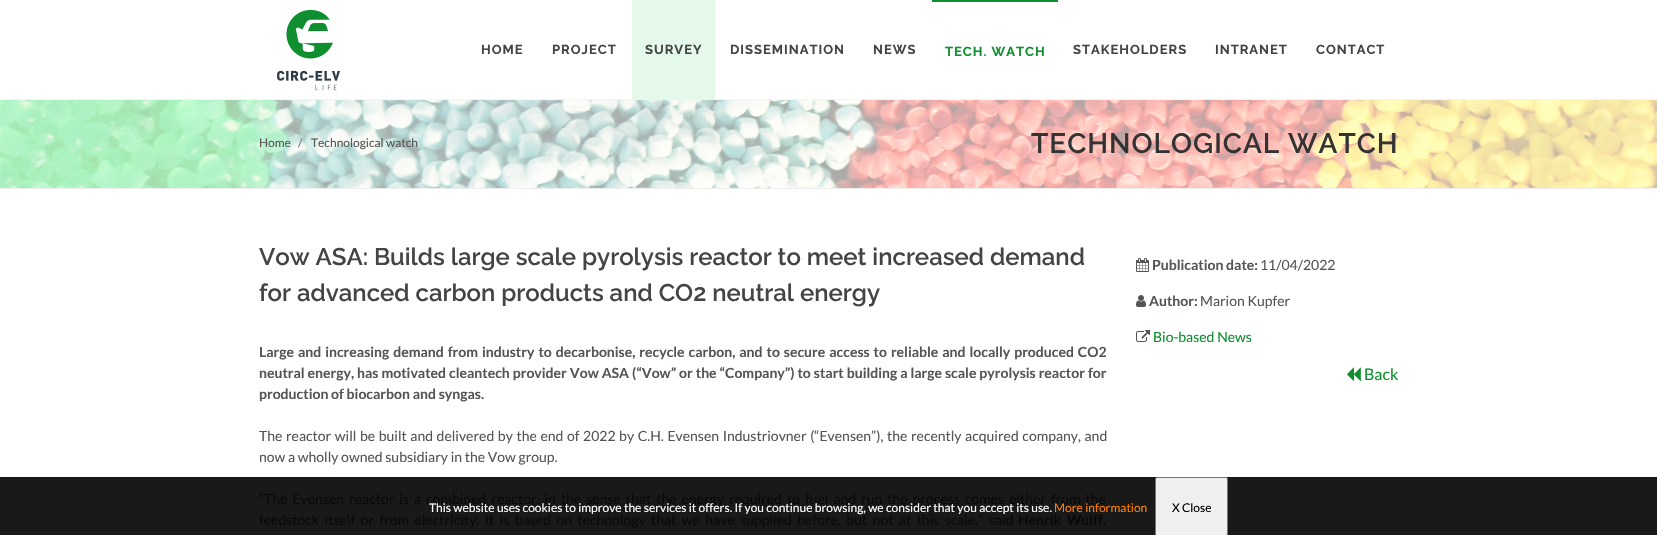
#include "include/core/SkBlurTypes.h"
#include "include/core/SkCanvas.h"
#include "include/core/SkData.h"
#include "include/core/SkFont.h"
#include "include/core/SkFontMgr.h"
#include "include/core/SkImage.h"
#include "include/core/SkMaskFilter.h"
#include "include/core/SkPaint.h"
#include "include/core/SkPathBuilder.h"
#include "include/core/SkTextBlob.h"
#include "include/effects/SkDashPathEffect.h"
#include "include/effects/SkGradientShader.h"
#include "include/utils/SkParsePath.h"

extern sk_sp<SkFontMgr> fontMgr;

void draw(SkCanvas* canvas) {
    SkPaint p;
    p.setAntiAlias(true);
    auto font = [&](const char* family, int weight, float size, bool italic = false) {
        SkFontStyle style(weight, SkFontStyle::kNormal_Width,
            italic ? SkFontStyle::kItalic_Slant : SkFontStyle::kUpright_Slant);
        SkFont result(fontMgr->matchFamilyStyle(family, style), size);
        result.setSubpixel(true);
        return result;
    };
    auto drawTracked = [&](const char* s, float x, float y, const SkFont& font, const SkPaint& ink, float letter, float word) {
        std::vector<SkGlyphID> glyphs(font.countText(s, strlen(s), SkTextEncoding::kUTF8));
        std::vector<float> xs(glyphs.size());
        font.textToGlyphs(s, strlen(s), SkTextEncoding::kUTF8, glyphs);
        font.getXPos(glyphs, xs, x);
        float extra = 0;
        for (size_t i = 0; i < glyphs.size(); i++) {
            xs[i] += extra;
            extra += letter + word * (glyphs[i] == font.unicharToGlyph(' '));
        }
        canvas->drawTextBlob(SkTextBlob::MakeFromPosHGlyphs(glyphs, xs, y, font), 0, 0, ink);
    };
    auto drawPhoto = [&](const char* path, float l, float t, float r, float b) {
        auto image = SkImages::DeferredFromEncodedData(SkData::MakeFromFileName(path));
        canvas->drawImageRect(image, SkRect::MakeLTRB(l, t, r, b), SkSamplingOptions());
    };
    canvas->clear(0xFFFFFFFF);
    p.setColor(0xFF191919);
    canvas->drawRect(SkRect::MakeLTRB(0, 477, 1657, 535), p);
    p.setColor(0xFFF5F5F5);
    canvas->drawRect(SkRect::MakeLTRB(0, 99, 1657, 100), p);
    drawPhoto("media/1.png", 277, 9, 340, 91);
    auto font1 = font("Raleway", 700, 13);
    p.setColor(0xFF444444);
    drawTracked("HOME", 481, 54, font1, p, 1, 0);
    drawTracked("PROJECT", 552, 54, font1, p, 1, 0);
    p.setColor(0xFFE5F9EA);
    canvas->drawRect(SkRect::MakeLTRB(632, 0, 715, 100), p);
    p.setColor(0xFF444444);
    {
        const struct { const char* s; float x, y; } items[] = {
            {"SURVEY", 645, 54},
            {"DISSEMINATION", 730, 54},
            {"NEWS", 873, 54},
        };
        for (auto [s, x, y] : items) {
            drawTracked(s, x, y, font1, p, 1, 0);
        }
    }
    p.setColor(0xFF0F8F2F);
    canvas->drawRect(SkRect::MakeLTRB(932, 0, 1058, 2), p);
    drawTracked("TECH. WATCH", 945, 56, font1, p, 1, 0);
    p.setColor(0xFF444444);
    {
        const struct { const char* s; float x, y; } items[] = {
            {"STAKEHOLDERS", 1073, 54},
            {"INTRANET", 1215, 54},
            {"CONTACT", 1316, 54},
        };
        for (auto [s, x, y] : items) {
            drawTracked(s, x, y, font1, p, 1, 0);
        }
    }
    drawPhoto("media/2.png", 0, 100, 1657, 188);
    p.setColor(0xFFEEEEEE);
    canvas->drawRect(SkRect::MakeLTRB(0, 188, 1657, 189), p);
    auto font2 = font("Lato", 400, 12);
    p.setColor(0xFF555555);
    canvas->drawString("Home", 259, 147, font2, p);
    p.setColor(0xFF6C757D);
    canvas->drawString("/", 298, 147, font2, p);
    p.setColor(0xFF555555);
    canvas->drawString("Technological watch", 311, 147, font2, p);
    auto font3 = font("Raleway", 600, 28);
    p.setColor(0xFF333333);
    drawTracked("TECHNOLOGICAL WATCH", 1031, 153, font3, p, 1, 0);
    auto font4 = font("Raleway", 600, 24);
    p.setColor(0xFF444444);
    canvas->drawString("Vow ASA: Builds large scale pyrolysis reactor to meet increased demand", 259, 265, font4, p);
    canvas->drawString("for advanced carbon products and CO2 neutral energy", 259, 301, font4, p);
    auto font5 = font("Lato", 700, 14);
    p.setColor(0xFF555555);
    drawTracked("Large and increasing demand from industry to decarbonise, recycle carbon, and to secure access to reliable and locally produced CO2", 259, 357, font5, p, 0, 1.25f);
    drawTracked("neutral energy, has motivated cleantech provider Vow ASA (“Vow” or the “Company”) to start building a large scale pyrolysis reactor for", 259, 378, font5, p, 0, 0.25f);
    canvas->drawString("production of biocarbon and syngas.", 259, 399, font5, p);
    auto font6 = font("Lato", 400, 14);
    drawTracked("The reactor will be built and delivered by the end of 2022 by C.H. Evensen Industriovner (“Evensen”), the recently acquired company, and", 259, 441, font6, p, 0, 0.9f);
    canvas->drawString("now a wholly owned subsidiary in the Vow group.", 259, 462, font6, p);
    p.setColor(0xFF080808);
    drawTracked("“The Evensen reactor is a combined reactor, in the sense that the energy required to fuel and run the process comes either from the", 259, 504, font6, p, 0, 2.3f);
    drawTracked("feedstock itself or from electricity. It is based on technology that we have supplied before, but not at this scale,” said", 259, 525, font6, p, 0, 2.75f);
    drawTracked("Henrik Wulff", 1018, 525, font5, p, 0, 2.75f);
    canvas->drawString(",", 1103, 525, font6, p);
    drawPhoto("media/3.png", 1136, 258, 1149, 272);
    p.setColor(0xFF555555);
    canvas->drawString("Publication date:", 1152, 270, font5, p);
    canvas->drawString("11/04/2022", 1260, 270, font6, p);
    drawPhoto("media/4.png", 1136, 295, 1146, 307);
    canvas->drawString("Author:", 1149, 306, font5, p);
    canvas->drawString("Marion Kupfer", 1200, 306, font6, p);
    drawPhoto("media/5.png", 1136, 330, 1150, 342);
    p.setColor(0xFF0F8F2F);
    canvas->drawString("Bio-based News", 1153, 342, font6, p);
    drawPhoto("media/6.png", 1347, 367, 1361, 382);
    auto font7 = font("Lato", 400, 16);
    canvas->drawString("Back", 1364, 380, font7, p);
    p.setColor(0xFFFFFFFF);
    canvas->drawString("This website uses cookies to improve the services it offers. If you continue browsing, we consider that you accept its use.", 429, 512, font2, p);
    p.setColor(0xFFFF8000);
    canvas->drawString("More information", 1054, 512, font2, p);
    p.setColor(0xFFEFEFEF);
    canvas->drawRoundRect(SkRect::MakeLTRB(1155.5f, 477.5f, 1227.5f, 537.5f), 1.5f, 1.5f, p);
    p.setStyle(SkPaint::kStroke_Style);
    p.setStrokeWidth(1);
    p.setColor(0xFF767676);
    canvas->drawRoundRect(SkRect::MakeLTRB(1155.5f, 477.5f, 1227.5f, 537.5f), 1.5f, 1.5f, p);
    p.setStyle(SkPaint::kFill_Style);
    p.setColor(0xFF000000);
    canvas->drawString("X Close", 1172, 512, font2, p);
}
